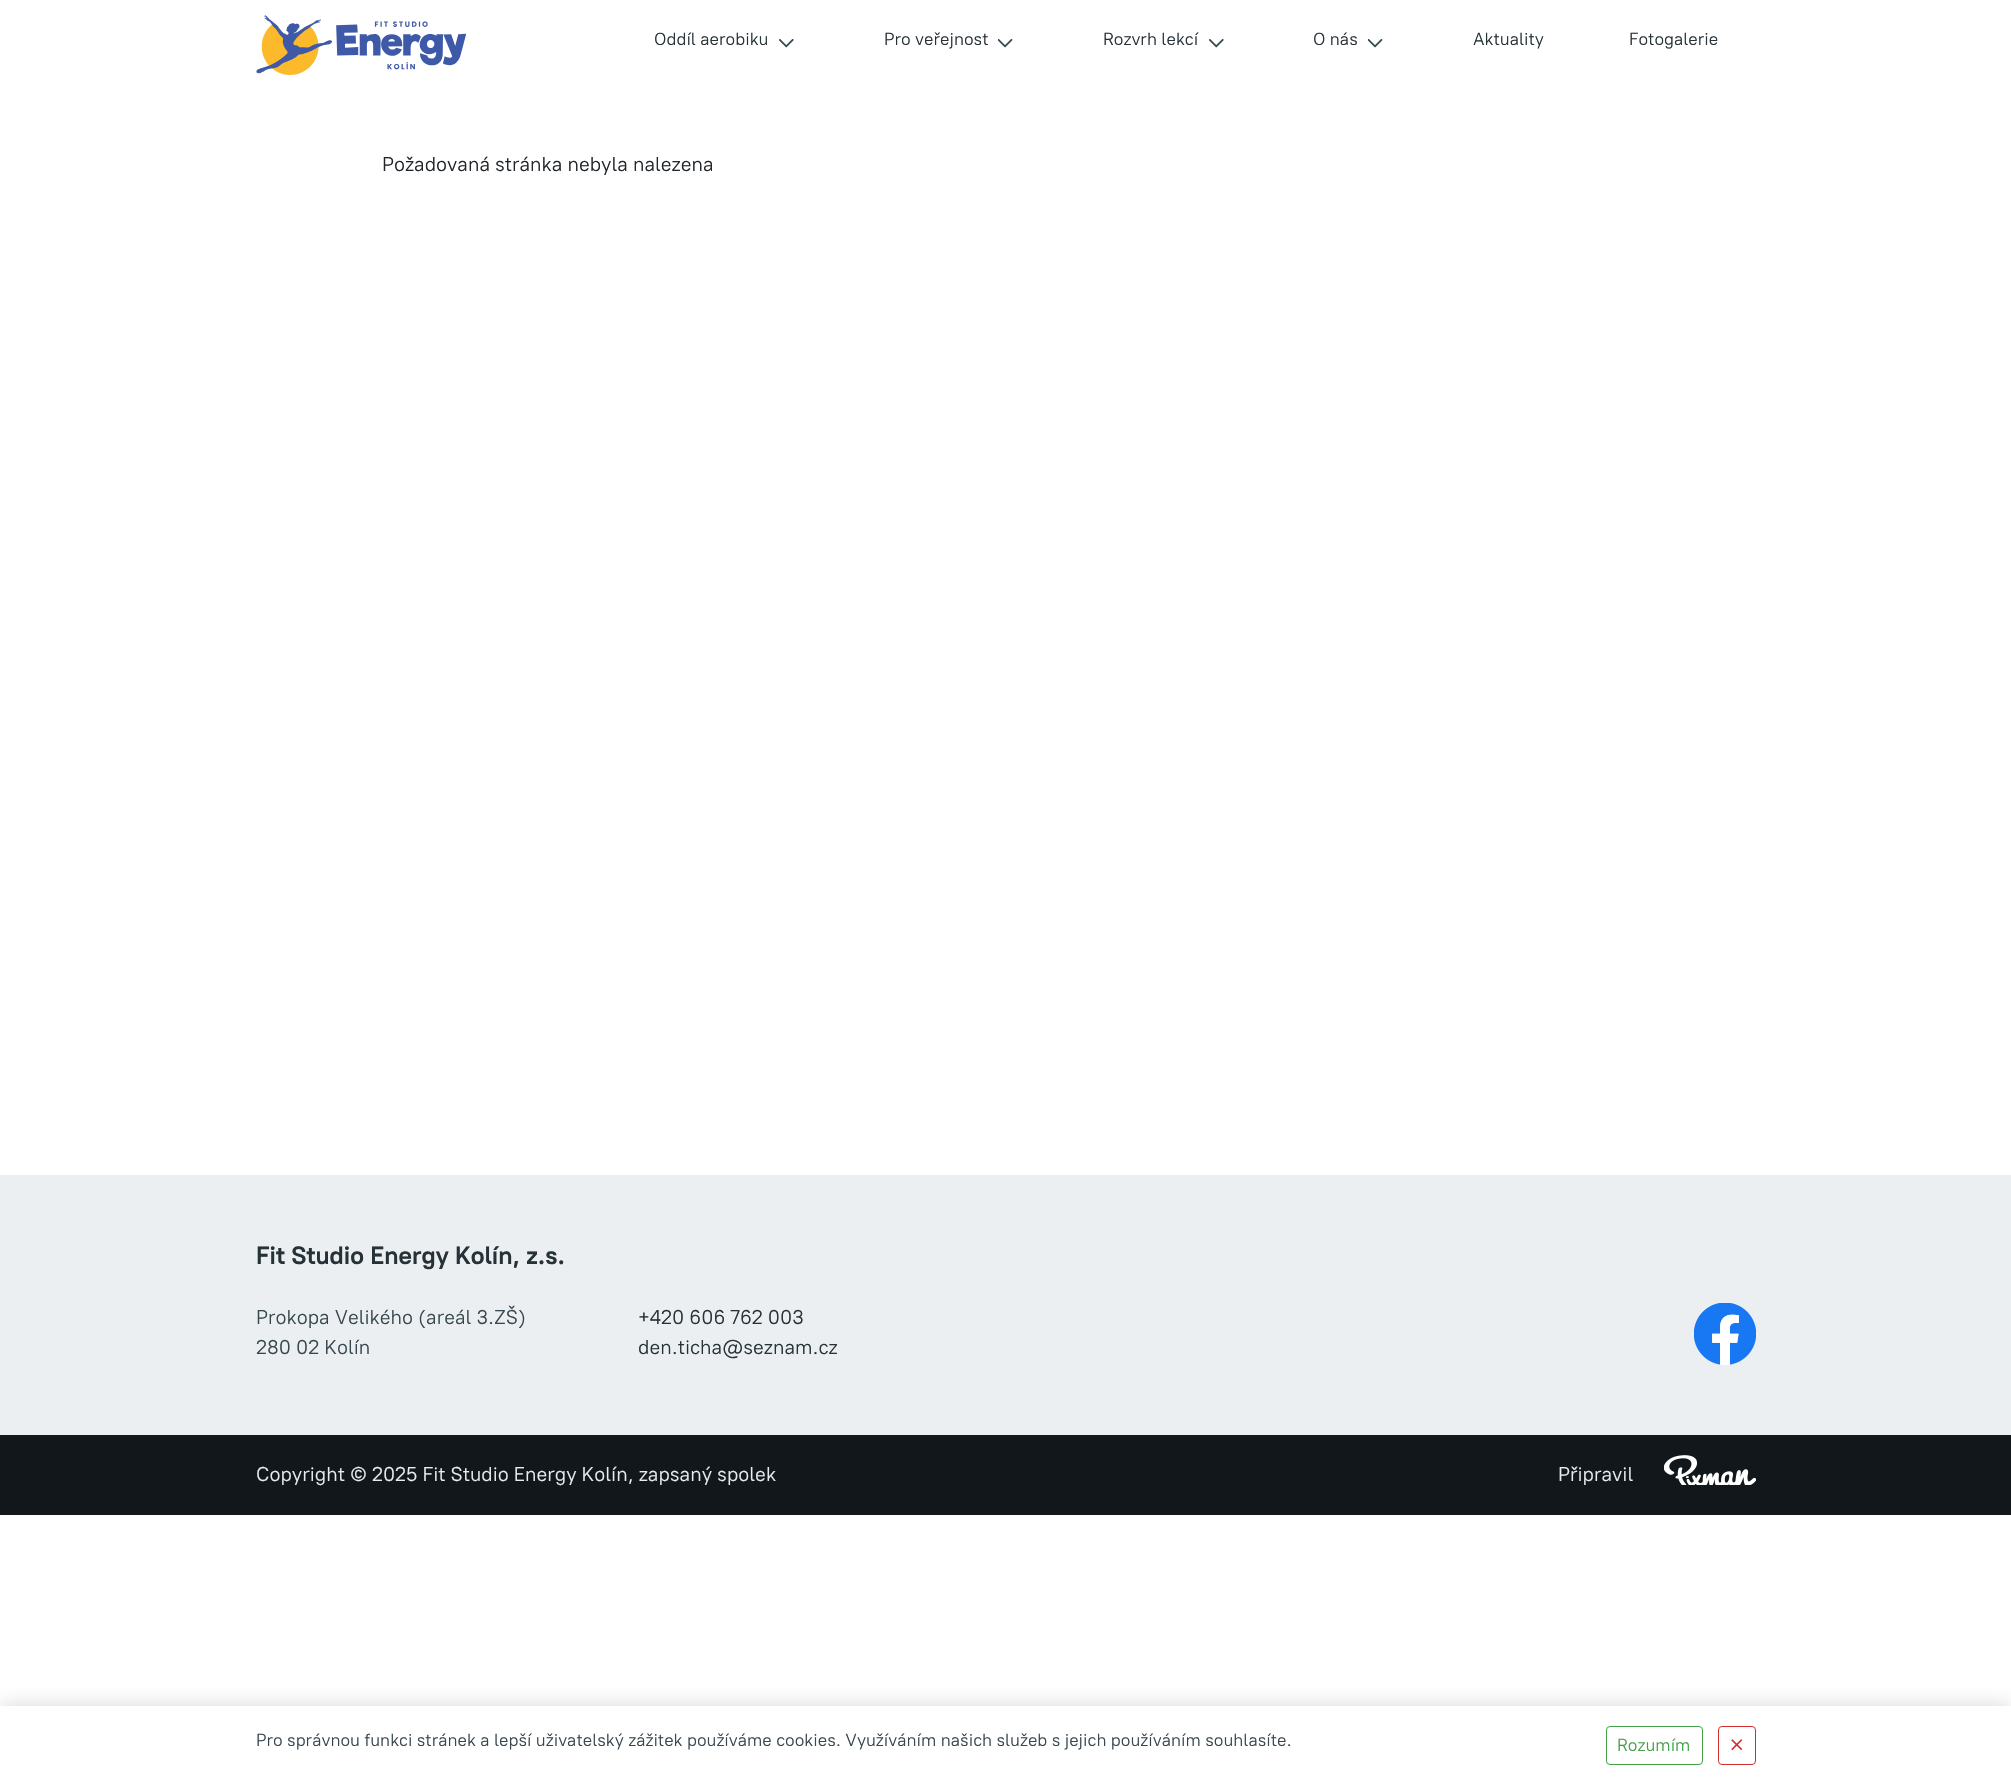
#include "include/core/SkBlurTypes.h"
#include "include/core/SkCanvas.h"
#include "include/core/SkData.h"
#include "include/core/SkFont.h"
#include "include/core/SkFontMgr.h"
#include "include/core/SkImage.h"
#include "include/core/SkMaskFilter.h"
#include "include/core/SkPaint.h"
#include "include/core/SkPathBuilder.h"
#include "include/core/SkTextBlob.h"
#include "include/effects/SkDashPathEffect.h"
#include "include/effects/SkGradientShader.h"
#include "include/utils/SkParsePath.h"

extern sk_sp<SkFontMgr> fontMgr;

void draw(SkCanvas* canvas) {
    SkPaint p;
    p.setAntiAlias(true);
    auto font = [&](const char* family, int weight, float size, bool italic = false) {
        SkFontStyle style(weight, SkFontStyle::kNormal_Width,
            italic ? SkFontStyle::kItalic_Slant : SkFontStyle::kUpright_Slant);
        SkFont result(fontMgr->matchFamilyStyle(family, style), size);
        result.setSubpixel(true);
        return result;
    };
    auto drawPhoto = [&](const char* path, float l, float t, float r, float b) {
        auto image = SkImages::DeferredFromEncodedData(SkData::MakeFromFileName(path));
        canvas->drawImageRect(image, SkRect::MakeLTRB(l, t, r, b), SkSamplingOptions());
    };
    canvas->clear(0xFFFFFFFF);
    drawPhoto("media/1.png", 256, 15, 466, 75);
    auto font1 = font("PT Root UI", 400, 17.5f);
    p.setColor(0xFF263238);
    canvas->drawString("Oddíl aerobiku", 654, 45, font1, p);
    drawPhoto("media/2.png", 779, 39, 794, 48);
    canvas->drawString("Pro veřejnost", 884, 45, font1, p);
    drawPhoto("media/3.png", 998, 39, 1013, 48);
    canvas->drawString("Rozvrh lekcí", 1103, 45, font1, p);
    drawPhoto("media/2.png", 1209, 39, 1224, 48);
    canvas->drawString("O nás", 1313, 45, font1, p);
    drawPhoto("media/3.png", 1368, 39, 1383, 48);
    canvas->drawString("Aktuality", 1473, 45, font1, p);
    canvas->drawString("Fotogalerie", 1629, 45, font1, p);
    auto font2 = font("PT Root UI", 400, 20);
    p.setColor(0xFF212529);
    canvas->drawString("Požadovaná stránka nebyla nalezena", 382, 171, font2, p);
    p.setColor(0xFFECEFF1);
    canvas->drawRect(SkRect::MakeLTRB(0, 1175, 2011, 1435), p);
    auto font3 = font("PT Root UI", 700, 25);
    p.setColor(0xFF263238);
    canvas->drawString("Fit Studio Energy Kolín, z.s.", 256, 1264, font3, p);
    p.setColor(0xFF37474F);
    canvas->drawString("Prokopa Velikého (areál 3.ZŠ)", 256, 1324, font2, p);
    canvas->drawString("280 02 Kolín", 256, 1354, font2, p);
    p.setColor(0xFF263238);
    canvas->drawString("+420 606 762 003", 638, 1324, font2, p);
    canvas->drawString("den.ticha@seznam.cz", 638, 1354, font2, p);
    drawPhoto("media/4.png", 1694, 1303, 1756, 1365);
    p.setColor(0xFF11171A);
    canvas->drawRect(SkRect::MakeLTRB(0, 1435, 2011, 1515), p);
    p.setColor(0xFFE9ECEF);
    canvas->drawString("Copyright © 2025 Fit Studio Energy Kolín, zapsaný spolek", 256, 1481, font2, p);
    canvas->drawString("Připravil", 1558, 1481, font2, p);
    drawPhoto("media/5.png", 1664, 1455, 1756, 1485);
    p.setColor(0x33323232);
    p.setMaskFilter(SkMaskFilter::MakeBlur(kNormal_SkBlurStyle, 10));
    canvas->drawRect(SkRect::MakeLTRB(0, 1706, 2011, 1785), p);
    p.setMaskFilter(nullptr);
    p.setColor(0xFFFFFFFF);
    canvas->drawRect(SkRect::MakeLTRB(0, 1706, 2011, 1785), p);
    p.setColor(0xFF37474F);
    canvas->drawString("Pro správnou funkci stránek a lepší uživatelský zážitek používáme cookies. Využíváním našich služeb s jejich používáním souhlasíte.", 256, 1746, font1, p);
    p.setStyle(SkPaint::kStroke_Style);
    p.setStrokeWidth(1);
    p.setColor(0xFF43A047);
    canvas->drawRoundRect(SkRect::MakeLTRB(1606.5f, 1726.5f, 1702.5f, 1764.5f), 3.5f, 3.5f, p);
    p.setStyle(SkPaint::kFill_Style);
    canvas->drawString("Rozumím", 1617, 1751, font1, p);
    p.setStyle(SkPaint::kStroke_Style);
    p.setColor(0xFFD32F2F);
    canvas->drawRoundRect(SkRect::MakeLTRB(1718.5f, 1726.5f, 1755.5f, 1764.5f), 3.5f, 3.5f, p);
    drawPhoto("media/6.png", 1731, 1739, 1743, 1751);
}
